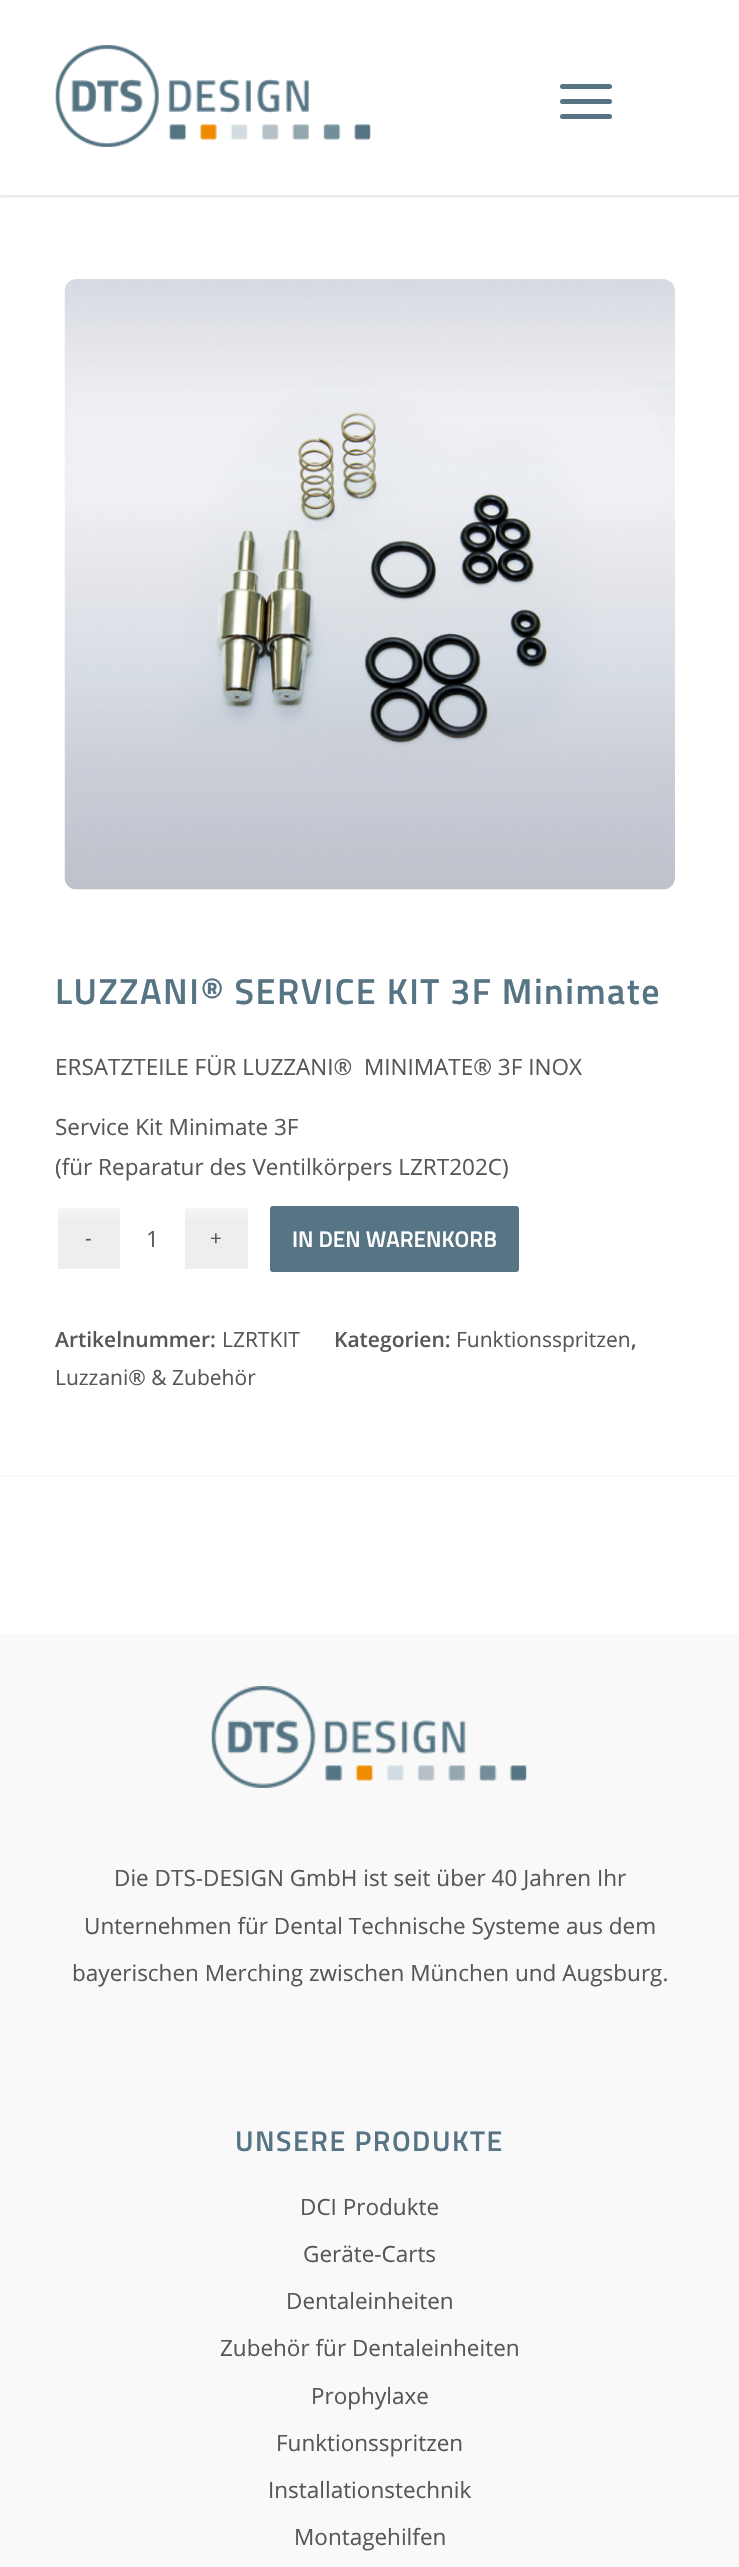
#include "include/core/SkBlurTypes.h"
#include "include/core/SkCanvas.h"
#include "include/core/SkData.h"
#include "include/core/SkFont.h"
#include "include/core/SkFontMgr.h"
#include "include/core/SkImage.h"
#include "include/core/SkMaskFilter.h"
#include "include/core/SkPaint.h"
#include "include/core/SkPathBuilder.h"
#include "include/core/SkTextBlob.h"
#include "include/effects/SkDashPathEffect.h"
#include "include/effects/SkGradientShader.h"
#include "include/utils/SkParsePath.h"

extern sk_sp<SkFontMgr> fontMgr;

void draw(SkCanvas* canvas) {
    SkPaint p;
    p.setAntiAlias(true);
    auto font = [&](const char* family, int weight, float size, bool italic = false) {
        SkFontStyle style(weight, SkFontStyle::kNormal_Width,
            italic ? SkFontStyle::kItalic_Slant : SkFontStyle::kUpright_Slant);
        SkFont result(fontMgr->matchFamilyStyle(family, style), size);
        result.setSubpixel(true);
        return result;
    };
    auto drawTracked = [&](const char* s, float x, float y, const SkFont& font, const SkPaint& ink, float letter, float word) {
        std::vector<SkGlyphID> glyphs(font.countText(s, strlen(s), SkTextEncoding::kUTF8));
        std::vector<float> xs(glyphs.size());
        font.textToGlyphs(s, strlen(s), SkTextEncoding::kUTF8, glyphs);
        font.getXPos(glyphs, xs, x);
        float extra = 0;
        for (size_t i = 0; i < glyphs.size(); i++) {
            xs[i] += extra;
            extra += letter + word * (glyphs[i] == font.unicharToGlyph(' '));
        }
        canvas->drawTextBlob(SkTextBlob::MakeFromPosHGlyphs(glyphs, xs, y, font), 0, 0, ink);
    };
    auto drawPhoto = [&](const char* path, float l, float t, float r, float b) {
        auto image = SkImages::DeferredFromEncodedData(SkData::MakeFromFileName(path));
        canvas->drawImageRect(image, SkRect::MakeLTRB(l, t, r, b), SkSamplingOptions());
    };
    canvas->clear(0xFFFFFFFF);
    canvas->save();
    canvas->clipRect(SkRect::MakeLTRB(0, 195, 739, 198));
    p.setColor(0x1A000000);
    p.setMaskFilter(SkMaskFilter::MakeBlur(kNormal_SkBlurStyle, 1.5f));
    canvas->drawRect(SkRect::MakeLTRB(-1, -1, 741, 197), p);
    p.setMaskFilter(nullptr);
    canvas->restore();
    drawPhoto("media/1.png", 55, 45, 371, 147);
    p.setColor(0xFF567483);
    canvas->drawRoundRect(SkRect::MakeLTRB(560, 99, 612, 104), 2.5f, 2.5f, p);
    canvas->drawRoundRect(SkRect::MakeLTRB(560, 84, 612, 89), 2.5f, 2.5f, p);
    canvas->drawRoundRect(SkRect::MakeLTRB(560, 114, 612, 119), 2.5f, 2.5f, p);
    drawPhoto("media/2.png", 64, 279, 675, 890);
    auto font1 = font("Titillium Web", 600, 36);
    drawTracked("LUZZANI® SERVICE KIT 3F Minimate", 55, 1004, font1, p, 1.5f, 0);
    auto font2 = font("Open Sans", 400, 22.5f);
    p.setColor(0xFF575756);
    {
        const struct { const char* s; float x, y; } items[] = {
            {"ERSATZTEILE FÜR LUZZANI®  MINIMATE® 3F INOX", 55, 1075},
            {"Service Kit Minimate 3F", 55, 1135},
            {"(für Reparatur des Ventilkörpers LZRT202C)", 55, 1175},
        };
        for (auto [s, x, y] : items) {
            canvas->drawString(s, x, y, font2, p);
        }
    }
    p.setColor(0xFFEEEEEE);
    canvas->drawRect(SkRect::MakeLTRB(58, 1208, 120, 1269), p);
    drawPhoto("media/3.png", 58, 1208, 120, 1218);
    canvas->drawRect(SkRect::MakeLTRB(185, 1208, 248, 1269), p);
    drawPhoto("media/4.png", 185, 1208, 248, 1218);
    auto font3 = font("Liberation Sans", 400, 20);
    p.setColor(0xFF575756);
    canvas->drawString("-", 85, 1245, font3, p);
    canvas->drawString("1", 146, 1247, font2, p);
    canvas->drawString("+", 210, 1245, font3, p);
    p.setColor(0xFF567483);
    canvas->drawRoundRect(SkRect::MakeLTRB(270, 1206, 519, 1272), 3, 3, p);
    auto font4 = font("Titillium Web", 600, 22.5f);
    p.setColor(0xFFFFFFFF);
    canvas->drawString("IN DEN WARENKORB", 292, 1247, font4, p);
    auto font5 = font("Open Sans", 600, 21);
    p.setColor(0xFF575756);
    canvas->drawString("Artikelnummer:", 55, 1347, font5, p);
    auto font6 = font("Open Sans", 400, 21);
    canvas->drawString("LZRTKIT", 222, 1347, font6, p);
    canvas->drawString("Kategorien:", 334, 1347, font5, p);
    canvas->drawString("Funktionsspritzen", 456, 1347, font6, p);
    canvas->drawString(",", 631, 1347, font5, p);
    canvas->drawString("Luzzani® & Zubehör", 55, 1385, font6, p);
    p.setColor(0xFFF9F9FA);
    canvas->drawRect(SkRect::MakeLTRB(0, 1475, 739, 1477), p);
    canvas->drawRect(SkRect::MakeLTRB(0, 1634, 739, 2567), p);
    drawPhoto("media/5.png", 211, 1686, 527, 1788);
    p.setColor(0xFF575756);
    {
        const struct { const char* s; float x, y; } items[] = {
            {"Die DTS-DESIGN GmbH ist seit über 40 Jahren Ihr", 114, 1886},
            {"Unternehmen für Dental Technische Systeme aus dem", 84, 1934},
            {"bayerischen Merching zwischen München und Augsburg.", 72, 1981},
        };
        for (auto [s, x, y] : items) {
            canvas->drawString(s, x, y, font2, p);
        }
    }
    auto font7 = font("Titillium Web", 600, 28.5f);
    p.setColor(0xFF567483);
    drawTracked("UNSERE PRODUKTE", 235, 2151, font7, p, 1.5f, 0);
    p.setColor(0xFF575756);
    {
        const struct { const char* s; float x, y; } items[] = {
            {"DCI Produkte", 300, 2215},
            {"Geräte-Carts", 303, 2262},
            {"Dentaleinheiten", 286, 2309},
            {"Zubehör für Dentaleinheiten", 220, 2356},
            {"Prophylaxe", 311, 2404},
            {"Funktionsspritzen", 276, 2451},
            {"Installationstechnik", 268, 2498},
            {"Montagehilfen", 294, 2545},
        };
        for (auto [s, x, y] : items) {
            canvas->drawString(s, x, y, font2, p);
        }
    }
}
